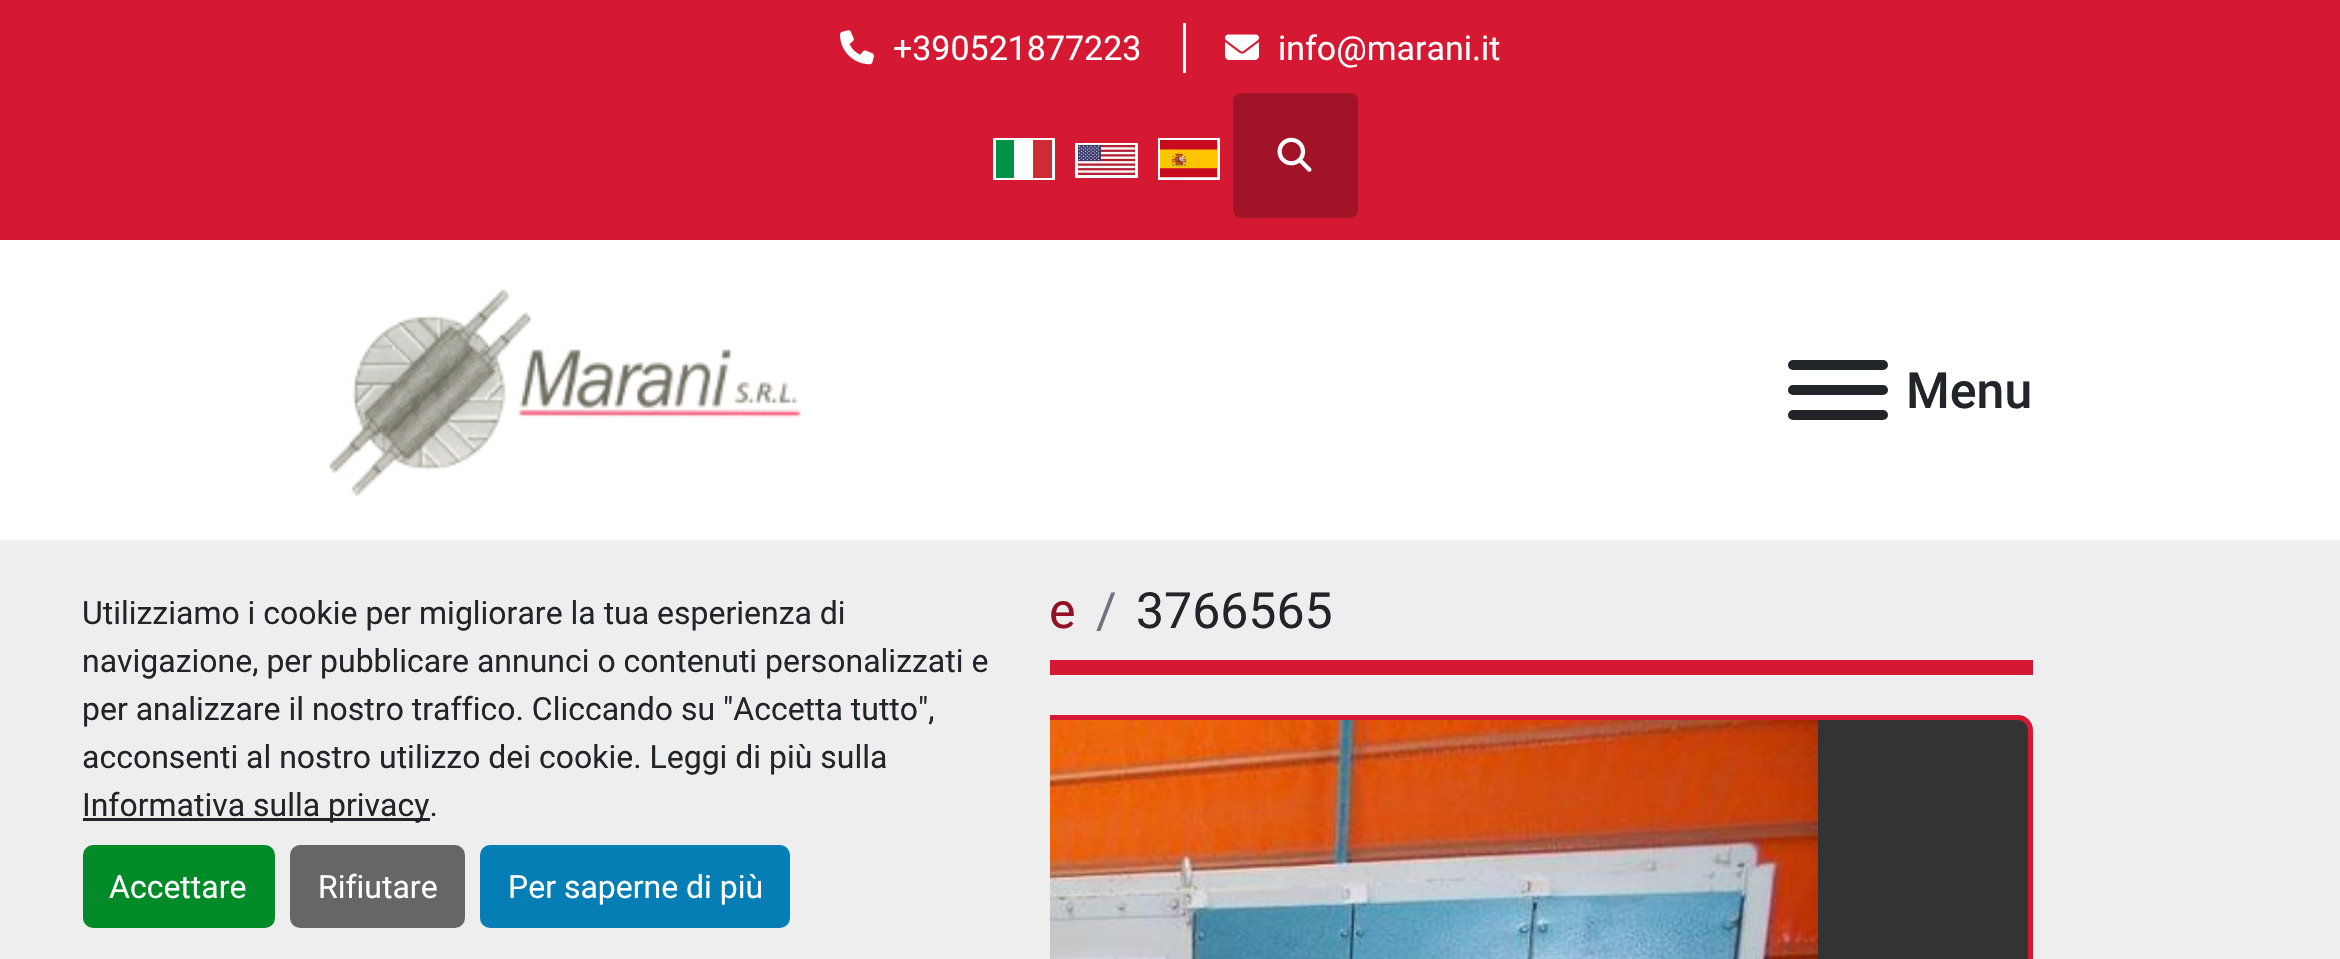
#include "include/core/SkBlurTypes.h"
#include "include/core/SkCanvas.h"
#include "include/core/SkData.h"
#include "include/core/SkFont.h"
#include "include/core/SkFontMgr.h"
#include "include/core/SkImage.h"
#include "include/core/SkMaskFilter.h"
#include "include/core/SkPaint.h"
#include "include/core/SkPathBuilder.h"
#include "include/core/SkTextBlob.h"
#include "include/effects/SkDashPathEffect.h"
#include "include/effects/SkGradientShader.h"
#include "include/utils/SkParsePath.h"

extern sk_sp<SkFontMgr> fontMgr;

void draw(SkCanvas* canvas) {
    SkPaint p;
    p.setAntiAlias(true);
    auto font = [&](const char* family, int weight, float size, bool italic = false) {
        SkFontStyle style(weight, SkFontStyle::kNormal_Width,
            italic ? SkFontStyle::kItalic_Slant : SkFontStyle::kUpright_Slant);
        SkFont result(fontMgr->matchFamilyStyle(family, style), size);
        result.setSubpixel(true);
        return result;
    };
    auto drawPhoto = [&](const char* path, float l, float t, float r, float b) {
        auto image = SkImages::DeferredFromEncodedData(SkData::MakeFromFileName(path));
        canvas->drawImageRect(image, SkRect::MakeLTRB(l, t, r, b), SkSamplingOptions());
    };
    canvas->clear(0xFFEEEEEE);
    p.setColor(0xFFD61933);
    canvas->drawRect(SkRect::MakeLTRB(0, 0, 2340, 240), p);
    p.setColor(0xFFFFFFFF);
    canvas->drawRect(SkRect::MakeLTRB(1183, 23, 1186, 73), p);
    drawPhoto("media/1.png", 840, 30, 874, 65);
    auto font1 = font("Roboto", 400, 34);
    canvas->drawString("+390521877223", 893, 60, font1, p);
    drawPhoto("media/2.png", 1225, 34, 1259, 60);
    canvas->drawString("info@marani.it", 1278, 60, font1, p);
    p.setStyle(SkPaint::kStroke_Style);
    p.setStrokeWidth(3);
    canvas->drawRect(SkRect::MakeLTRB(994.5f, 139.5f, 1053.5f, 178.5f), p);
    p.setStyle(SkPaint::kFill_Style);
    {
        const struct { float l, t, r, b; SkColor color; } items[] = {
            {996, 140, 1014, 178, 0xFF009246},
            {1014, 141, 1033, 177, 0xFFFFFFFF},
            {1033, 140, 1052, 178, 0xFFCE2B37},
        };
        for (auto [l, t, r, b, color] : items) {
            p.setColor(color);
            canvas->drawRect(SkRect::MakeLTRB(l, t, r, b), p);
        }
    }
    p.setStyle(SkPaint::kStroke_Style);
    p.setColor(0xFFFFFFFF);
    canvas->drawRect(SkRect::MakeLTRB(1076.5f, 144.5f, 1136.5f, 176.5f), p);
    drawPhoto("media/3.png", 1078, 145, 1135, 175);
    canvas->drawRect(SkRect::MakeLTRB(1159.5f, 139.5f, 1218.5f, 178.5f), p);
    drawPhoto("media/4.png", 1160, 140, 1218, 178);
    p.setStyle(SkPaint::kFill_Style);
    p.setColor(0xFFA11326);
    canvas->drawRoundRect(SkRect::MakeLTRB(1233, 93, 1358, 218), 8, 8, p);
    drawPhoto("media/5.png", 1277, 137, 1312, 172);
    p.setColor(0xFFFFFFFF);
    canvas->drawRect(SkRect::MakeLTRB(0, 240, 2340, 540), p);
    drawPhoto("media/6.png", 328, 289, 801, 496);
    p.setColor(0xFF212529);
    canvas->drawRoundRect(SkRect::MakeLTRB(1788, 385, 1888, 395), 5, 5, p);
    canvas->drawRoundRect(SkRect::MakeLTRB(1788, 360, 1888, 370), 5, 5, p);
    canvas->drawRoundRect(SkRect::MakeLTRB(1788, 410, 1888, 420), 5, 5, p);
    auto font2 = font("Roboto", 500, 50);
    canvas->drawString("Menu", 1906, 408, font2, p);
    p.setColor(0xFFD61933);
    canvas->drawRect(SkRect::MakeLTRB(1050, 660, 2033, 675), p);
    auto font3 = font("Roboto", 400, 50);
    p.setColor(0xFF921123);
    canvas->drawString("e", 1049, 628, font3, p);
    p.setColor(0xFF6C757D);
    canvas->drawString("/", 1096, 628, font3, p);
    p.setColor(0xFF212529);
    canvas->drawString("3766565", 1136, 628, font3, p);
    p.setColor(0xFF333333);
    canvas->drawRoundRect(SkRect::MakeLTRB(310.5f, 717.5f, 2030.5f, 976.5f), 12.5f, 12.5f, p);
    p.setStyle(SkPaint::kStroke_Style);
    p.setStrokeWidth(5);
    p.setColor(0xFFD61933);
    canvas->drawRoundRect(SkRect::MakeLTRB(310.5f, 717.5f, 2030.5f, 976.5f), 12.5f, 12.5f, p);
    drawPhoto("media/7.png", 1050, 720, 1818, 959);
    p.setStyle(SkPaint::kFill_Style);
    p.setColor(0xFFEEEEEE);
    canvas->drawRect(SkRect::MakeLTRB(308, 715, 1050, 959), p);
    auto font4 = font("Roboto", 400, 32);
    p.setColor(0xFF212529);
    {
        const struct { const char* s; float x, y; } items[] = {
            {"Utilizziamo i cookie per migliorare la tua esperienza di", 82, 624},
            {"navigazione, per pubblicare annunci o contenuti personalizzati e", 82, 672},
            {"per analizzare il nostro traffico. Cliccando su \"Accetta tutto\",", 82, 720},
            {"acconsenti al nostro utilizzo dei cookie. Leggi di più sulla", 82, 768},
        };
        for (auto [s, x, y] : items) {
            canvas->drawString(s, x, y, font4, p);
        }
    }
    canvas->drawRect(SkRect::MakeLTRB(83, 818, 430, 821), p);
    canvas->drawString("Informativa sulla privacy.", 82, 816, font4, p);
    p.setColor(0xFF008A28);
    canvas->drawRoundRect(SkRect::MakeLTRB(83, 845, 275, 928), 10, 10, p);
    p.setColor(0xFFFFFFFF);
    canvas->drawString("Accettare", 109, 898, font4, p);
    p.setColor(0xFF666666);
    canvas->drawRoundRect(SkRect::MakeLTRB(290, 845, 465, 928), 10, 10, p);
    p.setColor(0xFFFFFFFF);
    canvas->drawString("Rifiutare", 318, 898, font4, p);
    p.setColor(0xFF057EB6);
    canvas->drawRoundRect(SkRect::MakeLTRB(480, 845, 790, 928), 10, 10, p);
    p.setColor(0xFFFFFFFF);
    canvas->drawString("Per saperne di più", 508, 898, font4, p);
}
